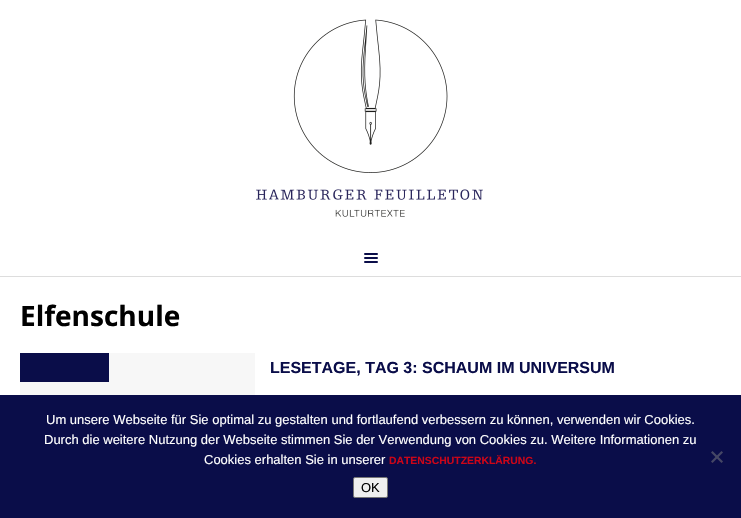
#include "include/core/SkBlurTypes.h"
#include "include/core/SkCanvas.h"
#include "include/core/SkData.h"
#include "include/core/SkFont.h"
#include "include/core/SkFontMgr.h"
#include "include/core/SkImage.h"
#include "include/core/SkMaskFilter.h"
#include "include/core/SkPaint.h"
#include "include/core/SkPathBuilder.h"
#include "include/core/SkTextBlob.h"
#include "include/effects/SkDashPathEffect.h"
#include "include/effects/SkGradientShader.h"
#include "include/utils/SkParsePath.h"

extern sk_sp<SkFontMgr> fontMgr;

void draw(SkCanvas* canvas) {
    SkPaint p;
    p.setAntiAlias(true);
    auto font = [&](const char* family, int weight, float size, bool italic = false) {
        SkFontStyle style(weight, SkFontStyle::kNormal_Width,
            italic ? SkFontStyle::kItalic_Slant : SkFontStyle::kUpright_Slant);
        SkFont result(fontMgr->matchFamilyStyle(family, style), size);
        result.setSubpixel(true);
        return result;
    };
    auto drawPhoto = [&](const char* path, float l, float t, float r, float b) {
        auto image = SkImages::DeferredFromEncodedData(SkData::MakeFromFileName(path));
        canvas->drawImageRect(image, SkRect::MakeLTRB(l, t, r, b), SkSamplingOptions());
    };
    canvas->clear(0xFFFFFFFF);
    drawPhoto("media/1.png", 0, 0, 741, 240);
    p.setColor(0xFFDDDDDD);
    canvas->drawRect(SkRect::MakeLTRB(0, 276, 741, 277), p);
    p.setColor(0xFF0A0D49);
    canvas->drawRoundRect(SkRect::MakeLTRB(364, 253, 378, 255), 1, 1, p);
    canvas->drawRoundRect(SkRect::MakeLTRB(364, 257, 378, 259), 1, 1, p);
    canvas->drawRoundRect(SkRect::MakeLTRB(364, 261, 378, 263), 1, 1, p);
    auto font1 = font("Open Sans", 700, 28);
    p.setColor(0xFF000000);
    canvas->drawString("Elfenschule", 20, 326, font1, p);
    p.setColor(0xFFF7F7F7);
    canvas->drawRect(SkRect::MakeLTRB(20, 353, 255, 395), p);
    p.setColor(0xFF0A0D49);
    canvas->drawRect(SkRect::MakeLTRB(20, 353, 109, 382), p);
    auto font2 = font("Liberation Sans", 700, 16);
    canvas->drawString("LESETAGE, TAG 3: SCHAUM IM UNIVERSUM", 270, 373, font2, p);
    canvas->drawRect(SkRect::MakeLTRB(0, 395, 741, 518), p);
    auto font3 = font("Liberation Sans", 400, 13);
    p.setColor(0xFFFFFFFF);
    {
        const struct { const char* s; float x, y; } items[] = {
            {"Um unsere Webseite für Sie optimal zu gestalten und fortlaufend verbessern zu können, verwenden wir Cookies.", 46, 424},
            {"Durch die weitere Nutzung der Webseite stimmen Sie der Verwendung von Cookies zu. Weitere Informationen zu", 44, 444},
            {"Cookies erhalten Sie in unserer", 204, 464},
        };
        for (auto [s, x, y] : items) {
            canvas->drawString(s, x, y, font3, p);
        }
    }
    auto font4 = font("Liberation Sans", 700, 10.4f);
    p.setColor(0xFFCC0518);
    canvas->drawString("DATENSCHUTZERKLÄRUNG.", 389, 464, font4, p);
    p.setColor(0xFF454765);
    canvas->drawPath(SkPathBuilder().moveTo(721.5f, 451).lineTo(723, 452.5f).lineTo(712.5f, 463).lineTo(711, 461.5f).close().detach(), p);
    canvas->drawPath(SkPathBuilder().moveTo(711, 452.5f).lineTo(712.5f, 451).lineTo(723, 461.5f).lineTo(721.5f, 463).close().detach(), p);
    p.setColor(0xFFEFEFEF);
    canvas->drawRoundRect(SkRect::MakeLTRB(353.5f, 477.5f, 387.5f, 497.5f), 1.5f, 1.5f, p);
    p.setStyle(SkPaint::kStroke_Style);
    p.setStrokeWidth(1);
    p.setColor(0xFF767676);
    canvas->drawRoundRect(SkRect::MakeLTRB(353.5f, 477.5f, 387.5f, 497.5f), 1.5f, 1.5f, p);
    p.setStyle(SkPaint::kFill_Style);
    p.setColor(0xFF000000);
    canvas->drawString("OK", 361, 492, font3, p);
}
